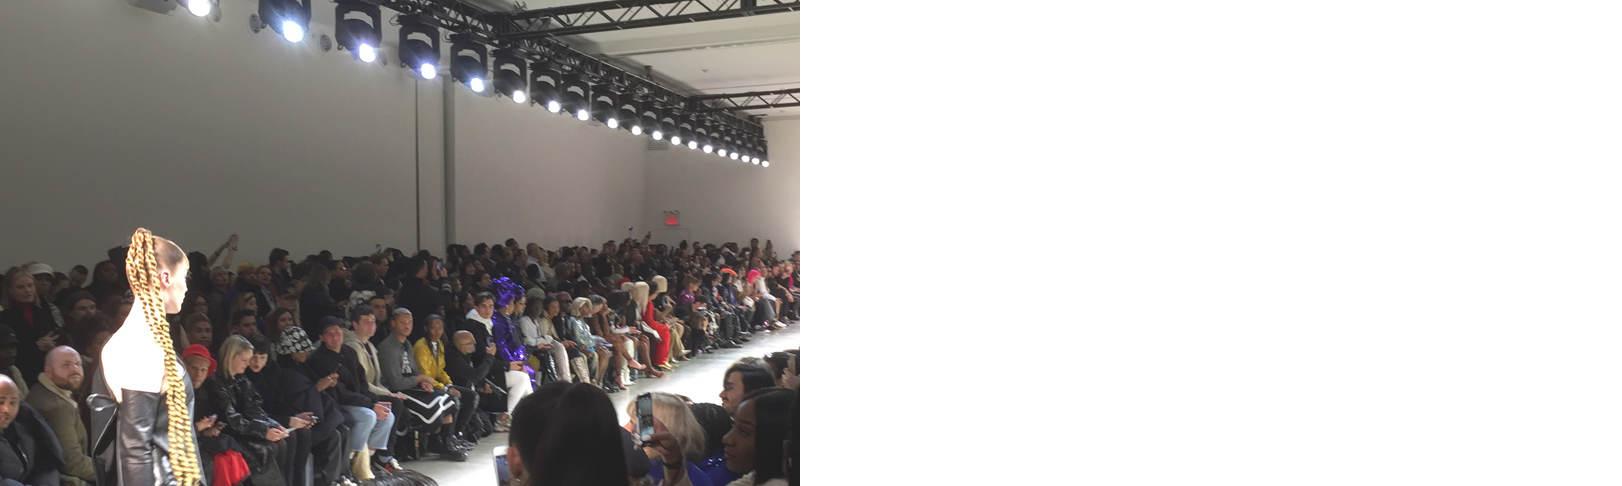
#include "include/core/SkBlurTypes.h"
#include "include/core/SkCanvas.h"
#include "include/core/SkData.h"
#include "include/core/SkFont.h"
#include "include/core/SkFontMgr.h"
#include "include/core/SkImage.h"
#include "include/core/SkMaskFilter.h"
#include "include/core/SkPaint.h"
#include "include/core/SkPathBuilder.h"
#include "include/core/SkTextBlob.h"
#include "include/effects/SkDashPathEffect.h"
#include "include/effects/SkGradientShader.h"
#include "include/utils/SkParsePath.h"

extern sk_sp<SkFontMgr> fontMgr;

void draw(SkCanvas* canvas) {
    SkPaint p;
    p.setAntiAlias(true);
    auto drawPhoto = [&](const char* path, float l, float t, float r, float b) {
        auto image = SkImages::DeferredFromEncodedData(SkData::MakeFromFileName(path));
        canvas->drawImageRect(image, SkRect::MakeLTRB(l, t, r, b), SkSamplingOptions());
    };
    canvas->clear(0xFFFFFFFF);
    drawPhoto("media/1.png", 0, 0, 800, 486);
}
